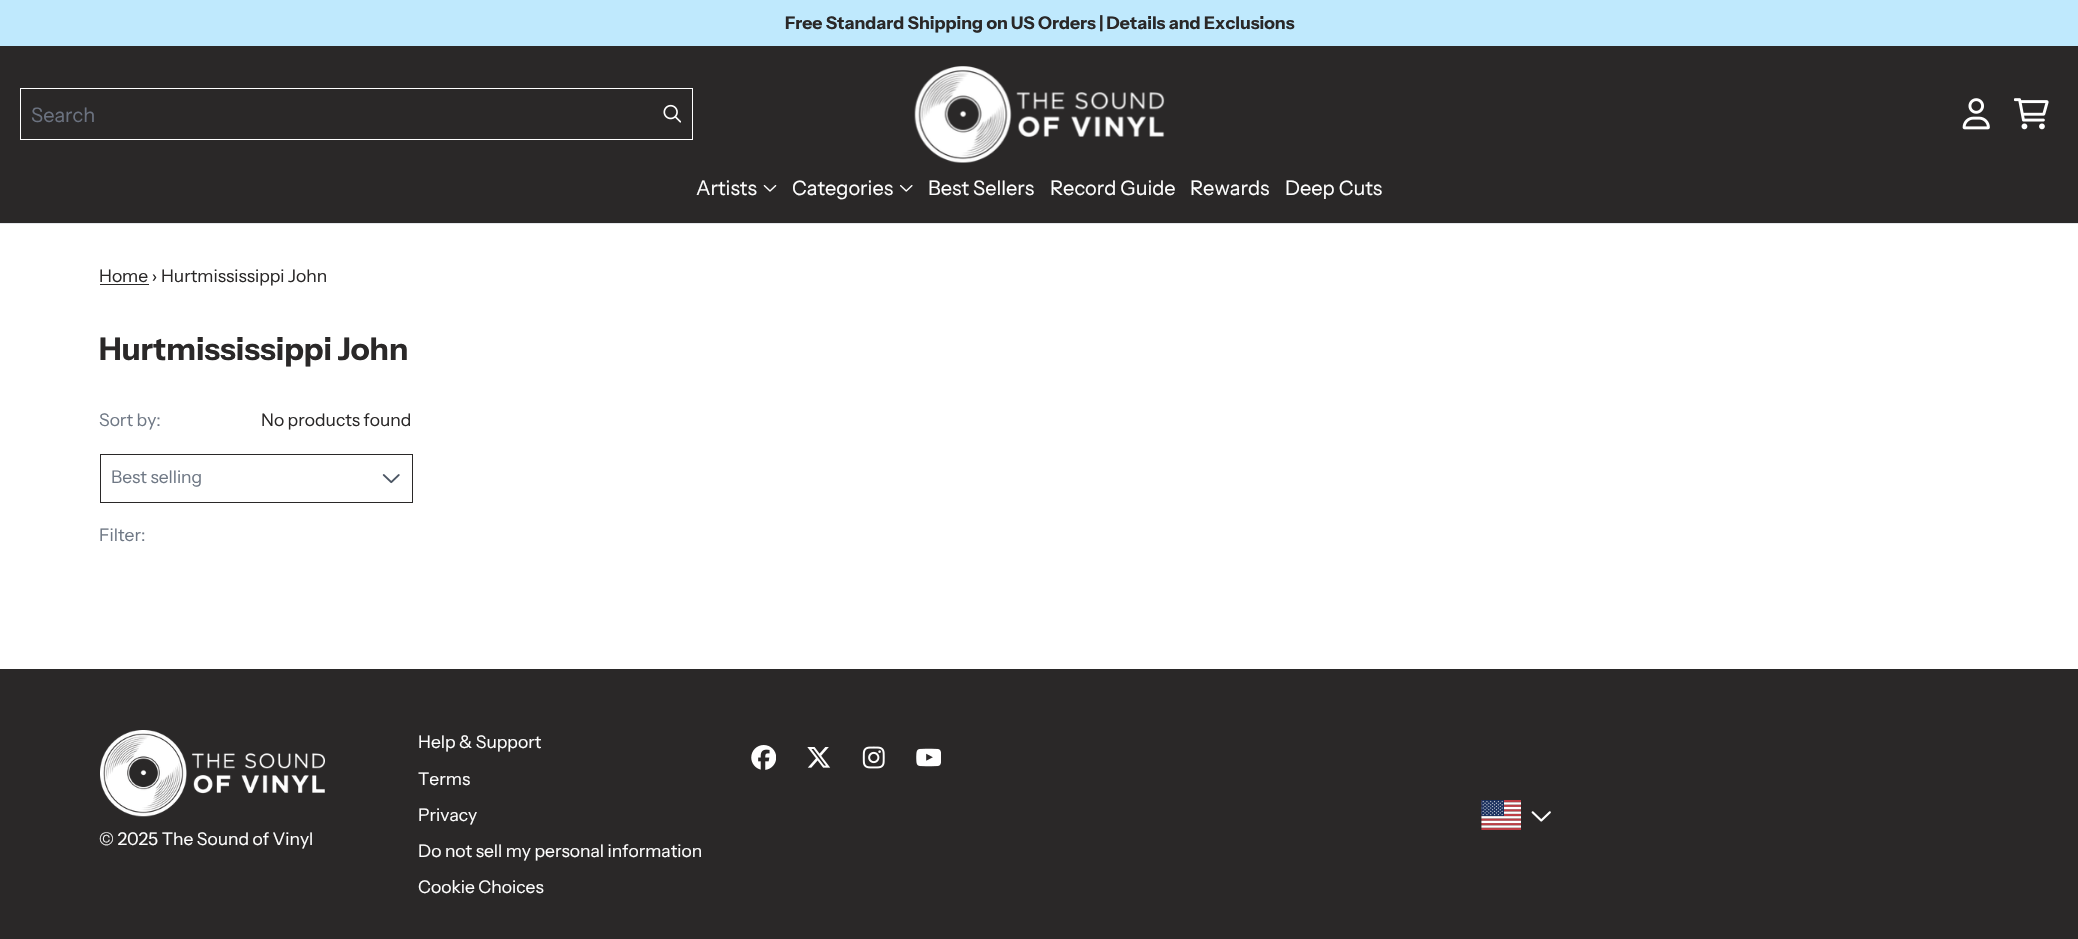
#include "include/core/SkBlurTypes.h"
#include "include/core/SkCanvas.h"
#include "include/core/SkData.h"
#include "include/core/SkFont.h"
#include "include/core/SkFontMgr.h"
#include "include/core/SkImage.h"
#include "include/core/SkMaskFilter.h"
#include "include/core/SkPaint.h"
#include "include/core/SkPathBuilder.h"
#include "include/core/SkTextBlob.h"
#include "include/effects/SkDashPathEffect.h"
#include "include/effects/SkGradientShader.h"
#include "include/utils/SkParsePath.h"

extern sk_sp<SkFontMgr> fontMgr;

void draw(SkCanvas* canvas) {
    SkPaint p;
    p.setAntiAlias(true);
    auto font = [&](const char* family, int weight, float size, bool italic = false) {
        SkFontStyle style(weight, SkFontStyle::kNormal_Width,
            italic ? SkFontStyle::kItalic_Slant : SkFontStyle::kUpright_Slant);
        SkFont result(fontMgr->matchFamilyStyle(family, style), size);
        result.setSubpixel(true);
        return result;
    };
    auto drawPhoto = [&](const char* path, float l, float t, float r, float b) {
        auto image = SkImages::DeferredFromEncodedData(SkData::MakeFromFileName(path));
        canvas->drawImageRect(image, SkRect::MakeLTRB(l, t, r, b), SkSamplingOptions());
    };
    canvas->clear(0xFFFFFFFF);
    p.setColor(0xFFBFE9FD);
    canvas->drawRect(SkRect::MakeLTRB(0, 0, 2078, 46), p);
    auto font1 = font("Instrument Sans", 700, 17.5f);
    p.setColor(0xFF2A2828);
    canvas->drawString("Free Standard Shipping on US Orders | Details and Exclusions", 785, 29, font1, p);
    canvas->drawRect(SkRect::MakeLTRB(0, 46, 2078, 223), p);
    p.setColor(0xFFE5E7EB);
    canvas->drawRect(SkRect::MakeLTRB(0, 223, 2078, 224), p);
    p.setStyle(SkPaint::kStroke_Style);
    p.setStrokeWidth(1);
    p.setColor(0xFFFFFFFF);
    canvas->drawRect(SkRect::MakeLTRB(20.5f, 88.5f, 692.5f, 139.5f), p);
    auto font2 = font("Instrument Sans", 400, 20);
    p.setStyle(SkPaint::kFill_Style);
    p.setColor(0xFF6B7280);
    canvas->drawString("Search", 31, 122, font2, p);
    drawPhoto("media/1.png", 663, 104, 681, 123);
    drawPhoto("media/2.png", 914, 66, 1165, 163);
    drawPhoto("media/3.png", 1962, 98, 1990, 130);
    drawPhoto("media/4.png", 2014, 98, 2049, 130);
    p.setColor(0xFFFFFFFF);
    canvas->drawString("Artists", 696, 195, font2, p);
    drawPhoto("media/5.png", 763, 185, 777, 192);
    canvas->drawString("Categories", 792, 195, font2, p);
    drawPhoto("media/6.png", 900, 185, 913, 192);
    {
        const struct { const char* s; float x, y; } items[] = {
            {"Best Sellers", 928, 195},
            {"Record Guide", 1050, 195},
            {"Rewards", 1190, 195},
            {"Deep Cuts", 1285, 195},
        };
        for (auto [s, x, y] : items) {
            canvas->drawString(s, x, y, font2, p);
        }
    }
    p.setColor(0xFF2A2828);
    canvas->drawRect(SkRect::MakeLTRB(100, 284, 149, 285), p);
    auto font3 = font("Instrument Sans", 400, 17.5f);
    canvas->drawString("Home › Hurtmississippi John", 99, 282, font3, p);
    auto font4 = font("Instrument Sans", 700, 31.25f);
    canvas->drawString("Hurtmississippi John", 99, 360, font4, p);
    p.setColor(0xFF6F7885);
    canvas->drawString("Sort by:", 99, 426, font3, p);
    p.setStyle(SkPaint::kStroke_Style);
    p.setColor(0xFF2A2828);
    canvas->drawRect(SkRect::MakeLTRB(100.5f, 454.5f, 412.5f, 502.5f), p);
    p.setStyle(SkPaint::kFill_Style);
    p.setColor(0xFF6F7885);
    canvas->drawString("Best selling", 111, 483, font3, p);
    drawPhoto("media/7.png", 382, 474, 400, 484);
    p.setColor(0xFF2A2828);
    canvas->drawString("No products found", 261, 426, font3, p);
    p.setColor(0xFF6F7885);
    canvas->drawString("Filter:", 99, 541, font3, p);
    p.setColor(0xFF2A2828);
    canvas->drawRect(SkRect::MakeLTRB(0, 669, 2078, 939), p);
    p.setColor(0xFFFFFFFF);
    {
        const struct { const char* s; float x, y; } items[] = {
            {"Help & Support", 418, 748},
            {"Terms", 418, 785},
            {"Privacy", 418, 821},
            {"Do not sell my personal information", 418, 857},
            {"Cookie Choices", 418, 893},
        };
        for (auto [s, x, y] : items) {
            canvas->drawString(s, x, y, font3, p);
        }
    }
    drawPhoto("media/8.png", 751, 745, 776, 770);
    drawPhoto("media/9.png", 807, 747, 831, 768);
    drawPhoto("media/10.png", 862, 746, 885, 769);
    drawPhoto("media/11.png", 916, 748, 941, 767);
    drawPhoto("media/12.png", 1481, 800, 1521, 830);
    drawPhoto("media/13.png", 1531, 811, 1551, 822);
    drawPhoto("media/14.png", 100, 730, 325, 817);
    canvas->drawString("© 2025 The Sound of Vinyl", 99, 845, font3, p);
}
